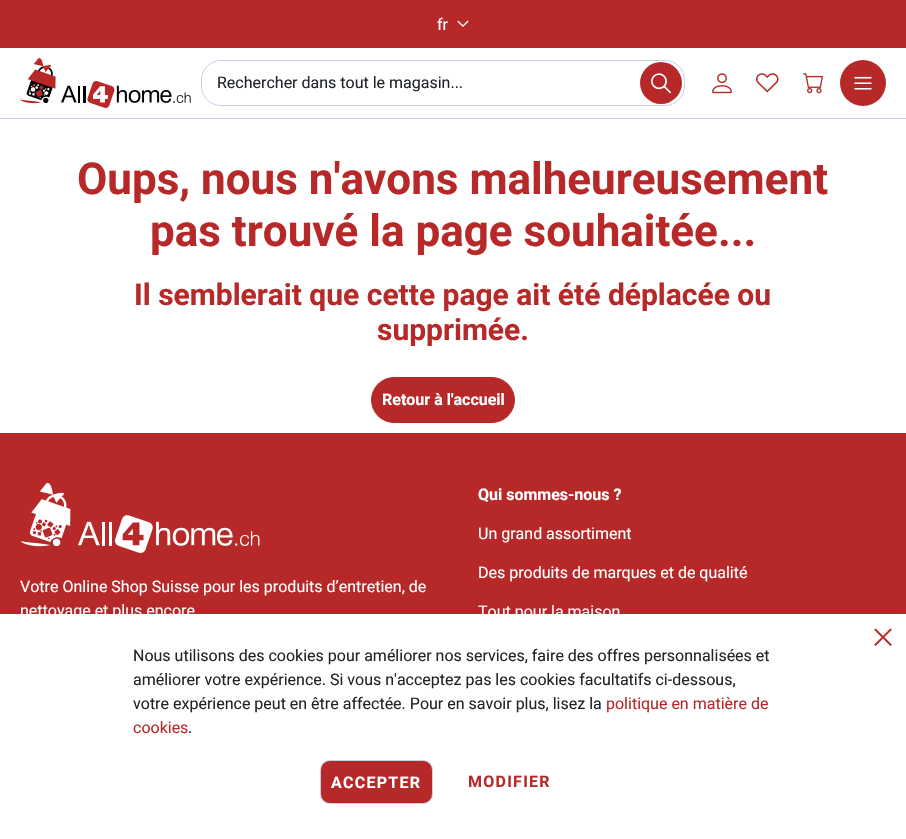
#include "include/core/SkBlurTypes.h"
#include "include/core/SkCanvas.h"
#include "include/core/SkData.h"
#include "include/core/SkFont.h"
#include "include/core/SkFontMgr.h"
#include "include/core/SkImage.h"
#include "include/core/SkMaskFilter.h"
#include "include/core/SkPaint.h"
#include "include/core/SkPathBuilder.h"
#include "include/core/SkTextBlob.h"
#include "include/effects/SkDashPathEffect.h"
#include "include/effects/SkGradientShader.h"
#include "include/utils/SkParsePath.h"

extern sk_sp<SkFontMgr> fontMgr;

void draw(SkCanvas* canvas) {
    SkPaint p;
    p.setAntiAlias(true);
    auto font = [&](const char* family, int weight, float size, bool italic = false) {
        SkFontStyle style(weight, SkFontStyle::kNormal_Width,
            italic ? SkFontStyle::kItalic_Slant : SkFontStyle::kUpright_Slant);
        SkFont result(fontMgr->matchFamilyStyle(family, style), size);
        result.setSubpixel(true);
        return result;
    };
    auto drawTracked = [&](const char* s, float x, float y, const SkFont& font, const SkPaint& ink, float letter, float word) {
        std::vector<SkGlyphID> glyphs(font.countText(s, strlen(s), SkTextEncoding::kUTF8));
        std::vector<float> xs(glyphs.size());
        font.textToGlyphs(s, strlen(s), SkTextEncoding::kUTF8, glyphs);
        font.getXPos(glyphs, xs, x);
        float extra = 0;
        for (size_t i = 0; i < glyphs.size(); i++) {
            xs[i] += extra;
            extra += letter + word * (glyphs[i] == font.unicharToGlyph(' '));
        }
        canvas->drawTextBlob(SkTextBlob::MakeFromPosHGlyphs(glyphs, xs, y, font), 0, 0, ink);
    };
    auto drawPhoto = [&](const char* path, float l, float t, float r, float b) {
        auto image = SkImages::DeferredFromEncodedData(SkData::MakeFromFileName(path));
        canvas->drawImageRect(image, SkRect::MakeLTRB(l, t, r, b), SkSamplingOptions());
    };
    canvas->clear(0xFFFFFFFF);
    p.setColor(0xFFC6D1E6);
    canvas->drawRect(SkRect::MakeLTRB(0, 118, 906, 119), p);
    p.setColor(0xFFB72929);
    canvas->drawRect(SkRect::MakeLTRB(0, 0, 906, 48), p);
    auto font1 = font("Roboto", 400, 16);
    p.setColor(0xFFFFFFFF);
    canvas->drawString("fr", 437, 30, font1, p);
    drawPhoto("media/1.png", 457, 20, 469, 27);
    drawPhoto("media/2.png", 20, 58, 191, 108);
    p.setStyle(SkPaint::kStroke_Style);
    p.setStrokeWidth(1);
    p.setColor(0xFFC6D1E6);
    canvas->drawRoundRect(SkRect::MakeLTRB(201.5f, 60.5f, 684.5f, 105.5f), 19.5f, 19.5f, p);
    p.setStyle(SkPaint::kFill_Style);
    p.setColor(0xFF212529);
    canvas->drawString("Rechercher dans tout le magasin...", 217, 88, font1, p);
    p.setColor(0xFFB72929);
    canvas->drawCircle(661, 83, 21, p);
    drawPhoto("media/3.png", 651, 73, 671, 94);
    drawPhoto("media/4.png", 712, 73, 732, 94);
    drawPhoto("media/5.png", 756, 73, 779, 93);
    drawPhoto("media/6.png", 803, 73, 823, 94);
    canvas->drawCircle(863, 83, 23, p);
    drawPhoto("media/7.png", 854, 76, 872, 90);
    auto font2 = font("Roboto", 700, 44);
    canvas->drawString("Oups, nous n'avons malheureusement", 77, 194, font2, p);
    canvas->drawString("pas trouvé la page souhaitée...", 150, 246, font2, p);
    auto font3 = font("Roboto", 700, 30);
    canvas->drawString("Il semblerait que cette page ait été déplacée ou", 134, 305, font3, p);
    canvas->drawString("supprimée.", 377, 340, font3, p);
    canvas->drawRoundRect(SkRect::MakeLTRB(371.5f, 377.5f, 514.5f, 422.5f), 22.5f, 22.5f, p);
    p.setStyle(SkPaint::kStroke_Style);
    canvas->drawRoundRect(SkRect::MakeLTRB(371.5f, 377.5f, 514.5f, 422.5f), 22.5f, 22.5f, p);
    auto font4 = font("Roboto", 700, 16);
    p.setStyle(SkPaint::kFill_Style);
    p.setColor(0xFFFFFFFF);
    canvas->drawString("Retour à l'accueil", 382, 405, font4, p);
    p.setColor(0xFFB72929);
    canvas->drawRect(SkRect::MakeLTRB(0, 433, 906, 614), p);
    drawPhoto("media/8.png", 20, 483, 260, 553);
    p.setColor(0xFFFFFFFF);
    canvas->drawString("Votre Online Shop Suisse pour les produits d’entretien, de", 20, 592, font1, p);
    canvas->drawString("nettoyage et plus encore", 20, 616, font1, p);
    canvas->drawString("Qui sommes-nous ?", 478, 500, font4, p);
    {
        const struct { const char* s; float x, y; } items[] = {
            {"Un grand assortiment", 478, 539},
            {"Des produits de marques et de qualité", 478, 578},
            {"Tout pour la maison", 478, 617},
        };
        for (auto [s, x, y] : items) {
            canvas->drawString(s, x, y, font1, p);
        }
    }
    p.setColor(0x0F000000);
    p.setMaskFilter(SkMaskFilter::MakeBlur(kNormal_SkBlurStyle, 9));
    canvas->drawRect(SkRect::MakeLTRB(0, 612, 906, 837), p);
    p.setMaskFilter(nullptr);
    p.setColor(0xFFFFFFFF);
    canvas->drawRect(SkRect::MakeLTRB(0, 614, 906, 839), p);
    drawPhoto("media/9.png", 874, 628, 892, 646);
    p.setColor(0xFF212529);
    {
        const struct { const char* s; float x, y; } items[] = {
            {"Nous utilisons des cookies pour améliorer nos services, faire des offres personnalisées et", 133, 661},
            {"améliorer votre expérience. Si vous n'acceptez pas les cookies facultatifs ci-dessous,", 133, 685},
            {"votre expérience peut en être affectée. Pour en savoir plus, lisez la", 133, 709},
        };
        for (auto [s, x, y] : items) {
            canvas->drawString(s, x, y, font1, p);
        }
    }
    p.setColor(0xFFB72929);
    canvas->drawString("politique en matière de", 606, 709, font1, p);
    canvas->drawString("cookies", 133, 733, font1, p);
    p.setColor(0xFF212529);
    canvas->drawString(".", 188, 733, font1, p);
    p.setColor(0xFFB72929);
    canvas->drawRoundRect(SkRect::MakeLTRB(320.5f, 760.5f, 432.5f, 803.5f), 9.5f, 9.5f, p);
    p.setStyle(SkPaint::kStroke_Style);
    p.setColor(0xFFC6D1E6);
    canvas->drawRoundRect(SkRect::MakeLTRB(320.5f, 760.5f, 432.5f, 803.5f), 9.5f, 9.5f, p);
    p.setStyle(SkPaint::kFill_Style);
    p.setColor(0xFFFFFFFF);
    drawTracked("ACCEPTER", 331, 788, font4, p, 1.25f, 0);
    p.setColor(0xFFB72929);
    drawTracked("MODIFIER", 468, 787, font4, p, 1.25f, 0);
}
